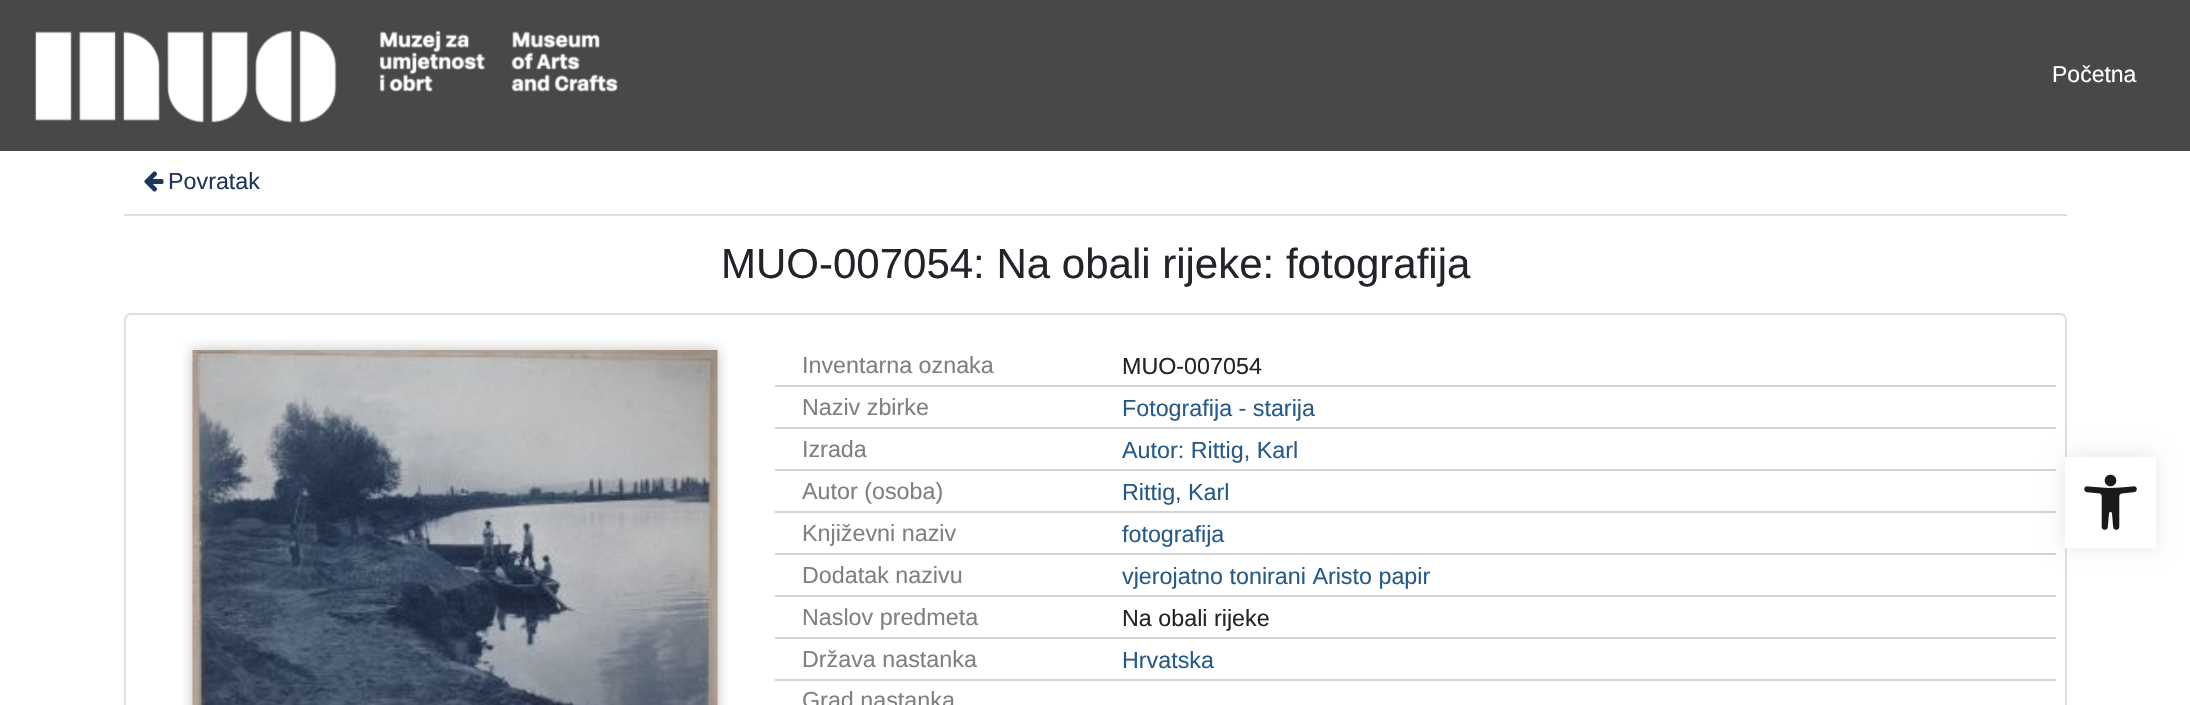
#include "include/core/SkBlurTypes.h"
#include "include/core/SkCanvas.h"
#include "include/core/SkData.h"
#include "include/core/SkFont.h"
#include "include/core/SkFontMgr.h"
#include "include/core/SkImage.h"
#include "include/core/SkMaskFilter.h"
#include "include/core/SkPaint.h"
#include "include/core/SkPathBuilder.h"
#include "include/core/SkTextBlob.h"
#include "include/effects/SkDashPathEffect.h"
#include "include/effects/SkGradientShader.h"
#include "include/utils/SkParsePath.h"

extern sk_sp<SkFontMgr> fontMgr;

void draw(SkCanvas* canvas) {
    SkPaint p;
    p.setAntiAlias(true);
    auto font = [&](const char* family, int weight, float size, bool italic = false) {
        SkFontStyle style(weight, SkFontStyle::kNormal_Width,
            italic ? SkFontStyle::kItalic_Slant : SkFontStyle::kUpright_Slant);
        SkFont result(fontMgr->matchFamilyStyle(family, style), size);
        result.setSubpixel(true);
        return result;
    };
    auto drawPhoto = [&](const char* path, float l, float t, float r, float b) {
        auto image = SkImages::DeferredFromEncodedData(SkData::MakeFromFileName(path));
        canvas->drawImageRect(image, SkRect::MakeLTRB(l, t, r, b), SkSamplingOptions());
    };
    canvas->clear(0xFFFFFFFF);
    p.setColor(0xFF484848);
    canvas->drawRect(SkRect::MakeLTRB(0, 0, 2190, 151), p);
    drawPhoto("media/1.png", 35, 30, 618, 123);
    auto font1 = font("Liberation Sans", 400, 23);
    p.setColor(0xFFFFFFFF);
    canvas->drawString("Početna", 2052, 82, font1, p);
    p.setColor(0xFFDFDFDF);
    canvas->drawRect(SkRect::MakeLTRB(124, 214, 2067, 216), p);
    drawPhoto("media/2.png", 144, 171, 164, 192);
    auto font2 = font("Liberation Sans", 400, 23.3f);
    p.setColor(0xFF1F365C);
    canvas->drawString("Povratak", 168, 189, font2, p);
    auto font3 = font("Liberation Sans", 400, 42);
    p.setColor(0xFF212529);
    canvas->drawString("MUO-007054: Na obali rijeke: fotografija", 721, 278, font3, p);
    p.setStyle(SkPaint::kStroke_Style);
    p.setStrokeWidth(2);
    p.setColor(0xFFDFDFDF);
    canvas->drawRoundRect(SkRect::MakeLTRB(125, 314, 2066, 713), 6, 6, p);
    drawPhoto("media/3.png", 182, 339, 728, 705);
    p.setStyle(SkPaint::kFill_Style);
    p.setColor(0xFFD3D3D3);
    canvas->drawRect(SkRect::MakeLTRB(775, 385, 2056, 387), p);
    p.setColor(0xFF808080);
    canvas->drawString("Inventarna oznaka", 802, 373, font2, p);
    p.setColor(0xFF212529);
    canvas->drawString("MUO-007054", 1122, 374, font2, p);
    p.setColor(0xFFD3D3D3);
    canvas->drawRect(SkRect::MakeLTRB(775, 427, 2056, 429), p);
    p.setColor(0xFF808080);
    canvas->drawString("Naziv zbirke", 802, 415, font2, p);
    p.setColor(0xFF275A87);
    canvas->drawString("Fotografija - starija", 1122, 416, font2, p);
    p.setColor(0xFFD3D3D3);
    canvas->drawRect(SkRect::MakeLTRB(775, 469, 2056, 471), p);
    p.setColor(0xFF808080);
    canvas->drawString("Izrada", 802, 457, font2, p);
    p.setColor(0xFF275A87);
    canvas->drawString("Autor: Rittig, Karl", 1122, 458, font2, p);
    p.setColor(0xFFD3D3D3);
    canvas->drawRect(SkRect::MakeLTRB(775, 511, 2056, 513), p);
    p.setColor(0xFF808080);
    canvas->drawString("Autor (osoba)", 802, 499, font2, p);
    p.setColor(0xFF275A87);
    canvas->drawString("Rittig, Karl", 1122, 500, font2, p);
    p.setColor(0xFFD3D3D3);
    canvas->drawRect(SkRect::MakeLTRB(775, 553, 2056, 555), p);
    p.setColor(0xFF808080);
    canvas->drawString("Književni naziv", 802, 541, font2, p);
    p.setColor(0xFF275A87);
    canvas->drawString("fotografija", 1122, 542, font2, p);
    p.setColor(0xFFD3D3D3);
    canvas->drawRect(SkRect::MakeLTRB(775, 595, 2056, 597), p);
    p.setColor(0xFF808080);
    canvas->drawString("Dodatak nazivu", 802, 583, font2, p);
    p.setColor(0xFF275A87);
    canvas->drawString("vjerojatno tonirani Aristo papir", 1122, 584, font2, p);
    p.setColor(0xFFD3D3D3);
    canvas->drawRect(SkRect::MakeLTRB(775, 637, 2056, 639), p);
    p.setColor(0xFF808080);
    canvas->drawString("Naslov predmeta", 802, 625, font2, p);
    p.setColor(0xFF212529);
    canvas->drawString("Na obali rijeke", 1122, 626, font2, p);
    p.setColor(0xFFD3D3D3);
    canvas->drawRect(SkRect::MakeLTRB(775, 679, 2056, 681), p);
    p.setColor(0xFF808080);
    canvas->drawString("Država nastanka", 802, 667, font2, p);
    p.setColor(0xFF275A87);
    canvas->drawString("Hrvatska", 1122, 668, font2, p);
    p.setColor(0xFF808080);
    canvas->drawString("Grad nastanka", 802, 708, font2, p);
    p.setColor(0x1A000000);
    p.setMaskFilter(SkMaskFilter::MakeBlur(kNormal_SkBlurStyle, 9));
    canvas->drawRect(SkRect::MakeLTRB(2065, 457, 2156, 548), p);
    p.setMaskFilter(nullptr);
    p.setColor(0xFFFFFFFF);
    canvas->drawRect(SkRect::MakeLTRB(2065, 457, 2156, 548), p);
    drawPhoto("media/4.png", 2084, 474, 2137, 530);
}
